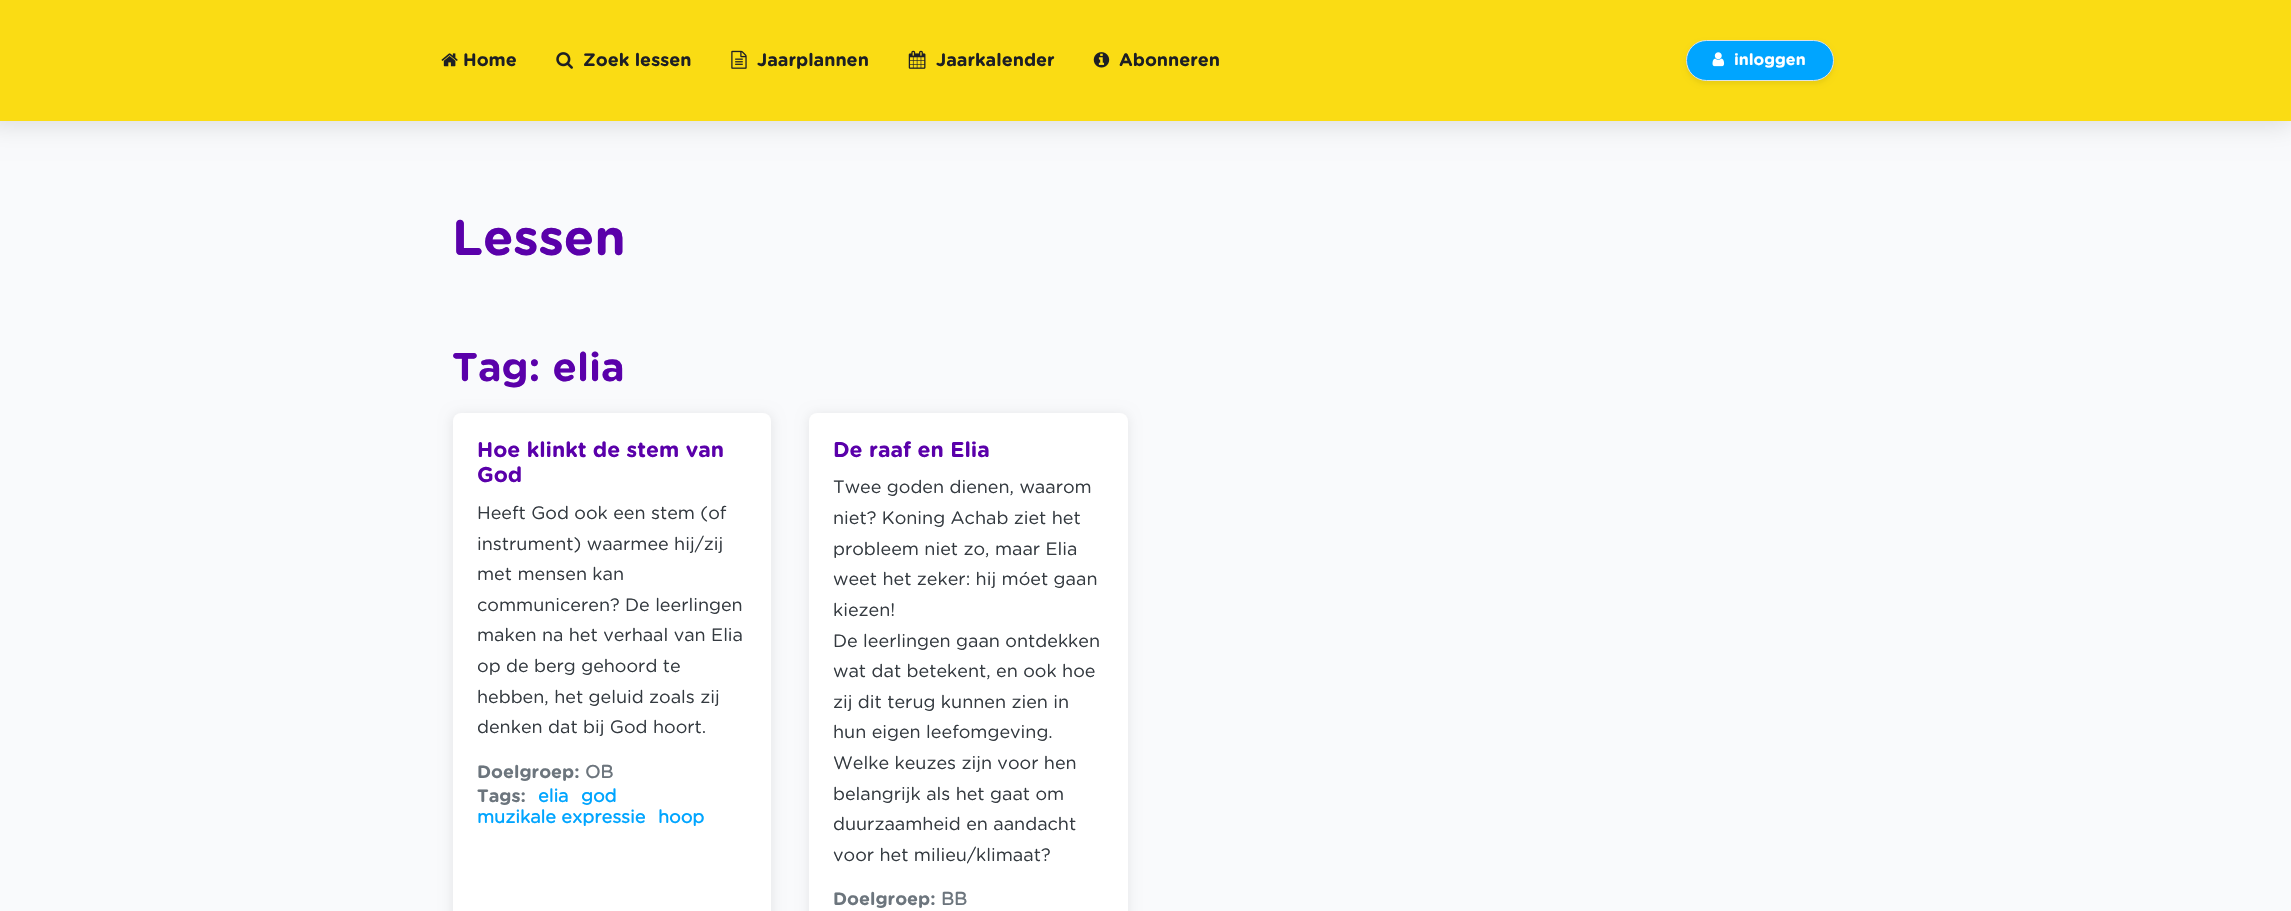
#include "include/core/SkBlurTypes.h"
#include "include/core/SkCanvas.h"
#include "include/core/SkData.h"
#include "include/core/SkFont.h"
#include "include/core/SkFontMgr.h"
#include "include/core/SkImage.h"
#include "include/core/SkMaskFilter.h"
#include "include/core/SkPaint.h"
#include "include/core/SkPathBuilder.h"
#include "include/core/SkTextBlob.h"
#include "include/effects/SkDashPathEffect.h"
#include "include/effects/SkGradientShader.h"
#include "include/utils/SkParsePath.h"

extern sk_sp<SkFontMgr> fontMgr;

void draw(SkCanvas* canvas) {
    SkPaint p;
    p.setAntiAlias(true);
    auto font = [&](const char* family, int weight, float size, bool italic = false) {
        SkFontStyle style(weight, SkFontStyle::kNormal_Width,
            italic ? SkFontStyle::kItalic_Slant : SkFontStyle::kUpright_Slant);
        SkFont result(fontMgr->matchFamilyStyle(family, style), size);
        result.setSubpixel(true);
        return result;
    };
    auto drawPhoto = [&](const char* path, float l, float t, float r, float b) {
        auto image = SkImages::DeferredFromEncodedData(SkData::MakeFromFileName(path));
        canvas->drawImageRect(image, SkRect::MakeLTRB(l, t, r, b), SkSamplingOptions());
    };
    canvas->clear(0xFFF9FAFC);
    p.setColor(0x21000000);
    p.setMaskFilter(SkMaskFilter::MakeBlur(kNormal_SkBlurStyle, 12.5f));
    canvas->drawRect(SkRect::MakeLTRB(-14, 0, 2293, 124), p);
    p.setMaskFilter(nullptr);
    p.setColor(0xFFFADC14);
    canvas->drawRect(SkRect::MakeLTRB(0, 0, 2291, 121), p);
    drawPhoto("media/1.png", 441, 53, 458, 67);
    auto font1 = font("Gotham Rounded", 700, 18);
    p.setColor(0xFF1D1F24);
    canvas->drawString("Home", 463, 66, font1, p);
    drawPhoto("media/2.png", 556, 52, 573, 69);
    canvas->drawString("Zoek lessen", 583, 66, font1, p);
    drawPhoto("media/3.png", 731, 50, 747, 69);
    canvas->drawString("Jaarplannen", 757, 66, font1, p);
    drawPhoto("media/4.png", 908, 50, 926, 69);
    canvas->drawString("Jaarkalender", 936, 66, font1, p);
    drawPhoto("media/5.png", 1093, 52, 1110, 68);
    canvas->drawString("Abonneren", 1119, 66, font1, p);
    p.setColor(0x12000000);
    p.setMaskFilter(SkMaskFilter::MakeBlur(kNormal_SkBlurStyle, 2.5f));
    canvas->drawRoundRect(SkRect::MakeLTRB(1686, 43, 1834, 84), 20.5f, 20.5f, p);
    p.setMaskFilter(nullptr);
    p.setColor(0xFF00A5FF);
    canvas->drawRoundRect(SkRect::MakeLTRB(1686.5f, 40.5f, 1833.5f, 80.5f), 20, 20, p);
    p.setStyle(SkPaint::kStroke_Style);
    p.setStrokeWidth(1);
    p.setColor(0xFFDEE2E6);
    canvas->drawRoundRect(SkRect::MakeLTRB(1686.5f, 40.5f, 1833.5f, 80.5f), 20, 20, p);
    drawPhoto("media/6.png", 1712, 52, 1725, 67);
    auto font2 = font("Gotham Rounded", 700, 16);
    p.setStyle(SkPaint::kFill_Style);
    p.setColor(0xFFFFFFFF);
    canvas->drawString("inloggen", 1734, 65, font2, p);
    auto font3 = font("Gotham Rounded", 700, 50);
    p.setColor(0xFF5A00AA);
    canvas->drawString("Lessen", 452, 255, font3, p);
    auto font4 = font("Gotham Rounded", 700, 40);
    canvas->drawString("Tag: elia", 452, 381, font4, p);
    p.setColor(0x12000000);
    p.setMaskFilter(SkMaskFilter::MakeBlur(kNormal_SkBlurStyle, 6));
    canvas->drawRoundRect(SkRect::MakeLTRB(451, 413, 773, 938), 9, 9, p);
    p.setMaskFilter(nullptr);
    p.setColor(0xFFFFFFFF);
    canvas->drawRoundRect(SkRect::MakeLTRB(453, 413, 771, 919), 8, 8, p);
    auto font5 = font("Gotham Rounded", 700, 21.25f);
    p.setColor(0xFF5A00AA);
    canvas->drawString("Hoe klinkt de stem van", 477, 457, font5, p);
    canvas->drawString("God", 477, 482, font5, p);
    auto font6 = font("Gotham Rounded", 400, 18);
    p.setColor(0xFF343A40);
    {
        const struct { const char* s; float x, y; } items[] = {
            {"Heeft God ook een stem (of", 477, 519},
            {"instrument) waarmee hij/zij", 477, 550},
            {"met mensen kan", 477, 580},
            {"communiceren? De leerlingen", 477, 611},
            {"maken na het verhaal van Elia", 477, 641},
            {"op de berg gehoord te", 477, 672},
            {"hebben, het geluid zoals zij", 477, 703},
            {"denken dat bij God hoort.", 477, 733},
        };
        for (auto [s, x, y] : items) {
            canvas->drawString(s, x, y, font6, p);
        }
    }
    p.setColor(0xFF6C757D);
    canvas->drawString("Doelgroep:", 477, 778, font1, p);
    auto font7 = font("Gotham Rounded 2", 700, 18);
    canvas->drawString("OB", 585, 778, font7, p);
    canvas->drawString("Tags:", 477, 802, font1, p);
    p.setColor(0xFF00A5FF);
    {
        const struct { const char* s; float x, y; } items[] = {
            {"elia", 538, 802},
            {"god", 581, 802},
            {"muzikale expressie", 477, 823},
            {"hoop", 658, 823},
        };
        for (auto [s, x, y] : items) {
            canvas->drawString(s, x, y, font7, p);
        }
    }
    p.setColor(0x12000000);
    p.setMaskFilter(SkMaskFilter::MakeBlur(kNormal_SkBlurStyle, 6));
    canvas->drawRoundRect(SkRect::MakeLTRB(808, 413, 1129, 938), 9, 9, p);
    p.setMaskFilter(nullptr);
    p.setColor(0xFFFFFFFF);
    canvas->drawRoundRect(SkRect::MakeLTRB(809, 413, 1128, 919), 8, 8, p);
    p.setColor(0xFF5A00AA);
    canvas->drawString("De raaf en Elia", 833, 457, font5, p);
    p.setColor(0xFF343A40);
    {
        const struct { const char* s; float x, y; } items[] = {
            {"Twee goden dienen, waarom", 833, 493},
            {"niet? Koning Achab ziet het", 833, 524},
            {"probleem niet zo, maar Elia", 833, 555},
            {"weet het zeker: hij móet gaan", 833, 585},
            {"kiezen!", 833, 616},
            {"De leerlingen gaan ontdekken", 833, 647},
            {"wat dat betekent, en ook hoe", 833, 677},
            {"zij dit terug kunnen zien in", 833, 708},
            {"hun eigen leefomgeving.", 833, 738},
            {"Welke keuzes zijn voor hen", 833, 769},
            {"belangrijk als het gaat om", 833, 800},
            {"duurzaamheid en aandacht", 833, 830},
            {"voor het milieu/klimaat?", 833, 861},
        };
        for (auto [s, x, y] : items) {
            canvas->drawString(s, x, y, font6, p);
        }
    }
    p.setColor(0xFF6C757D);
    canvas->drawString("Doelgroep:", 833, 905, font1, p);
    canvas->drawString("BB", 941, 905, font7, p);
}
